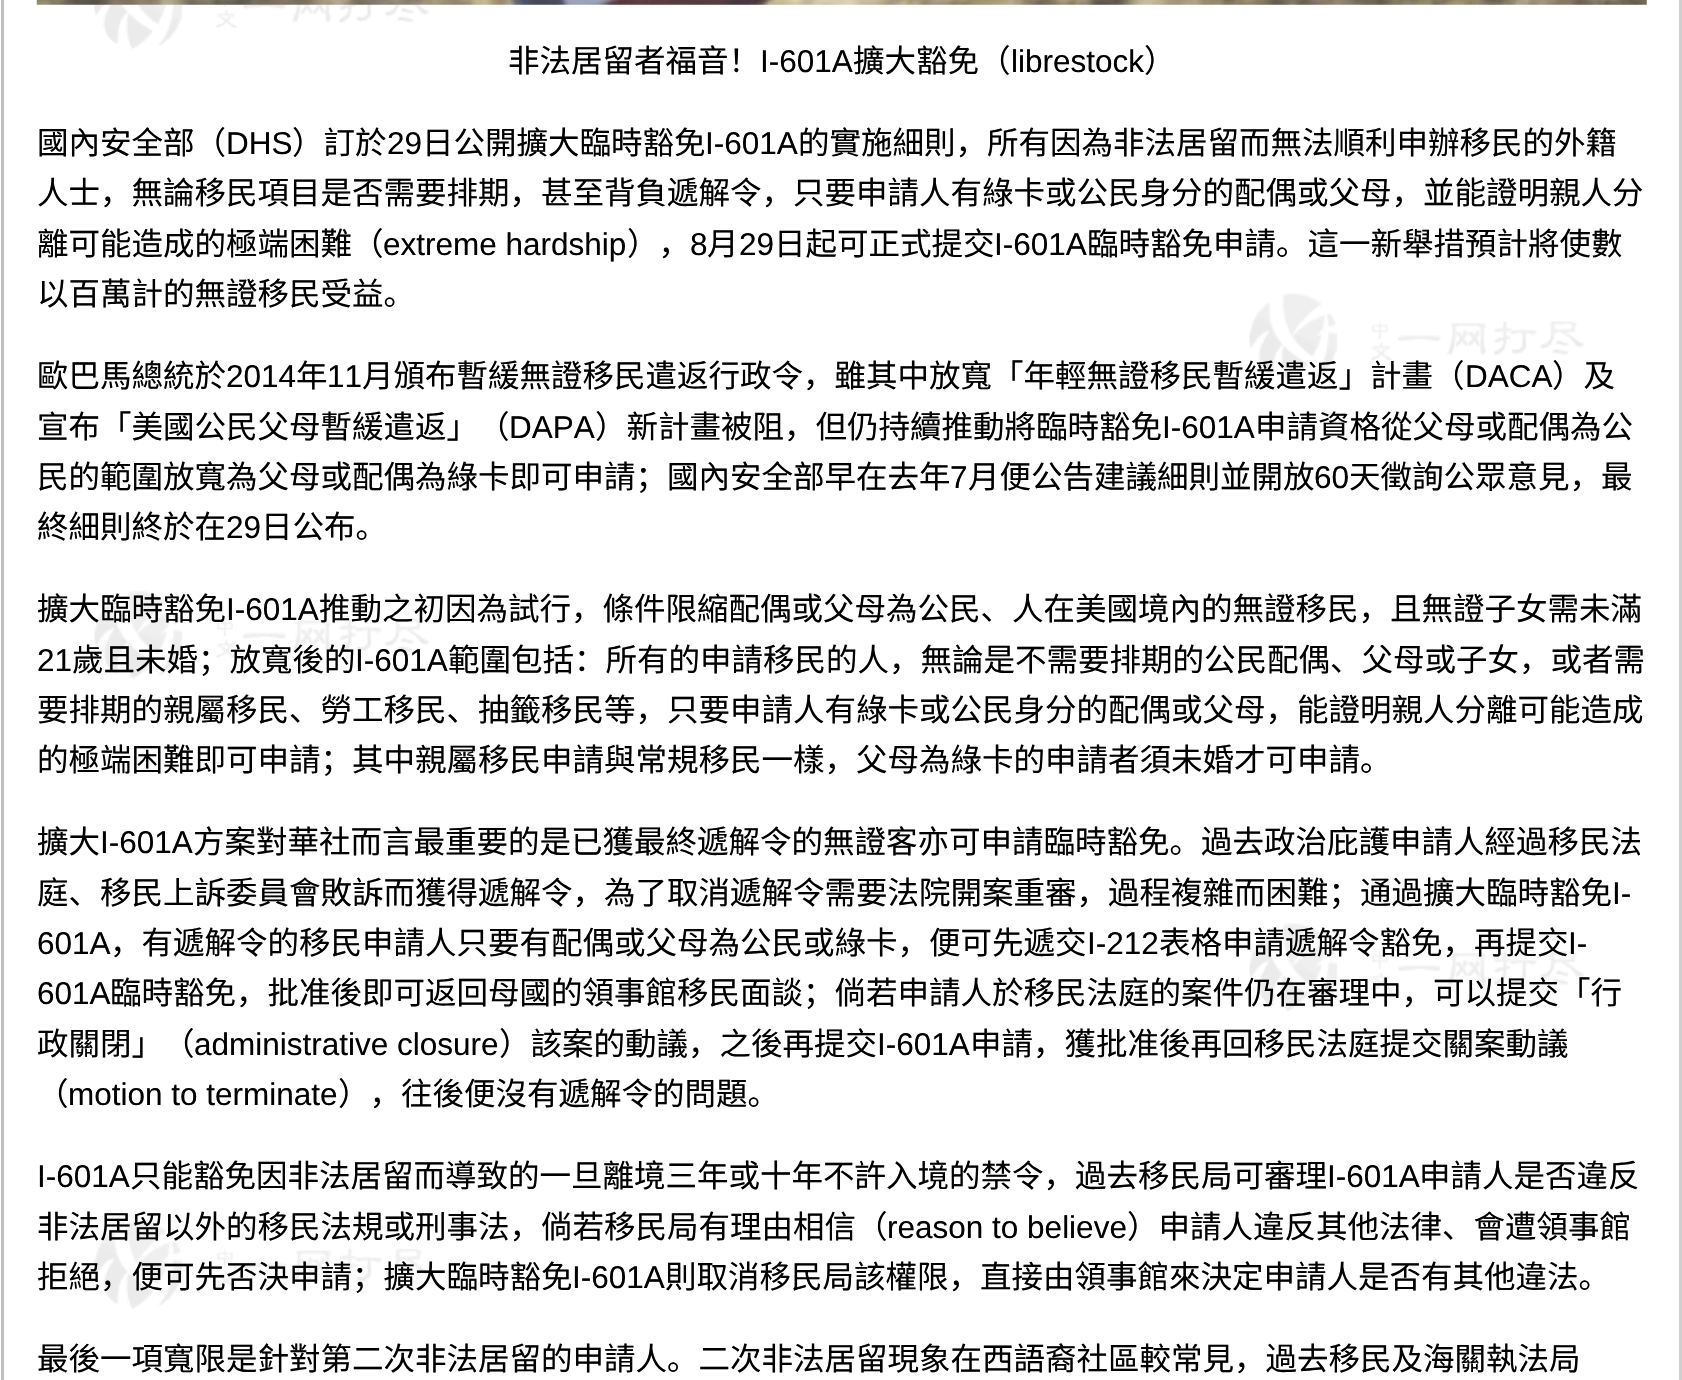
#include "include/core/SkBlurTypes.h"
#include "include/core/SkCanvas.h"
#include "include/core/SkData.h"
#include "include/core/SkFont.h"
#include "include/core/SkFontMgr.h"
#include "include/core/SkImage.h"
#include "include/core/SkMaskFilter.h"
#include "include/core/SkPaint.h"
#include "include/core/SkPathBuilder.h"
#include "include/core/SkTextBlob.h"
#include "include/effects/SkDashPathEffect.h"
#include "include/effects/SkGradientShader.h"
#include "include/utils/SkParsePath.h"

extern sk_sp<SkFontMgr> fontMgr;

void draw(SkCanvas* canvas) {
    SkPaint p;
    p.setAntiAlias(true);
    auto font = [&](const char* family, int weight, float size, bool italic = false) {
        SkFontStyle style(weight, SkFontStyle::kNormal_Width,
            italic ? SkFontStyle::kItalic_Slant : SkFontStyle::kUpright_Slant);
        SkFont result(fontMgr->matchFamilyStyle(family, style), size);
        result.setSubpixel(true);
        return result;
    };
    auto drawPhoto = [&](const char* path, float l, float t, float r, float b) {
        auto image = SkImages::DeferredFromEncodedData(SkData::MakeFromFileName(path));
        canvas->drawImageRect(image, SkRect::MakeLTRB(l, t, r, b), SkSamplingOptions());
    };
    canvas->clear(0xFFFFFFFF);
    p.setColor(0xFFC0C0C0);
    canvas->drawRect(SkRect::MakeLTRB(1, 0, 4, 1380), p);
    drawPhoto("media/1.png", 94, 4, 1584, 1309);
    drawPhoto("media/2.png", 36, 0, 1647, 5);
    auto font1 = font("Noto Sans CJK SC", 400, 31.5f);
    p.setColor(0xFF000000);
    canvas->drawString("非法居留者福音！", 508, 72, font1, p);
    auto font2 = font("Liberation Sans", 400, 31.5f);
    canvas->drawString("I-601A", 760, 72, font2, p);
    canvas->drawString("擴大豁免（", 853, 72, font1, p);
    canvas->drawString("librestock", 1011, 72, font2, p);
    canvas->drawString("）", 1144, 72, font1, p);
    canvas->drawString("國內安全部（", 37, 154, font1, p);
    canvas->drawString("DHS", 226, 154, font2, p);
    canvas->drawString("）訂於", 292, 154, font1, p);
    canvas->drawString("29", 387, 154, font2, p);
    canvas->drawString("日公開擴大臨時豁免", 422, 154, font1, p);
    canvas->drawString("I-601A", 705, 154, font2, p);
    {
        const struct { const char* s; float x, y; } items[] = {
            {"的實施細則，所有因為非法居留而無法順利申辦移民的外籍", 798, 154},
            {"人士，無論移民項目是否需要排期，甚至背負遞解令，只要申請人有綠卡或公民身分的配偶或父母，並能證明親人分", 37, 204},
            {"離可能造成的極端困難（", 37, 255},
        };
        for (auto [s, x, y] : items) {
            canvas->drawString(s, x, y, font1, p);
        }
    }
    canvas->drawString("extreme hardship", 383, 255, font2, p);
    canvas->drawString("），", 627, 255, font1, p);
    canvas->drawString("8", 690, 255, font2, p);
    canvas->drawString("月", 707, 255, font1, p);
    canvas->drawString("29", 739, 255, font2, p);
    canvas->drawString("日起可正式提交", 774, 255, font1, p);
    canvas->drawString("I-601A", 994, 255, font2, p);
    {
        const struct { const char* s; float x, y; } items[] = {
            {"臨時豁免申請。這一新舉措預計將使數", 1087, 255},
            {"以百萬計的無證移民受益。", 37, 305},
            {"歐巴馬總統於", 37, 387},
        };
        for (auto [s, x, y] : items) {
            canvas->drawString(s, x, y, font1, p);
        }
    }
    canvas->drawString("2014", 226, 387, font2, p);
    canvas->drawString("年", 296, 387, font1, p);
    canvas->drawString("11", 327, 387, font2, p);
    canvas->drawString("月頒布暫緩無證移民遣返行政令，雖其中放寬「年輕無證移民暫緩遣返」計畫（", 362, 387, font1, p);
    canvas->drawString("DACA", 1465, 387, font2, p);
    canvas->drawString("）及", 1552, 387, font1, p);
    canvas->drawString("宣布「美國公民父母暫緩遣返」（", 37, 438, font1, p);
    canvas->drawString("DAPA", 509, 438, font2, p);
    canvas->drawString("）新計畫被阻，但仍持續推動將臨時豁免", 595, 438, font1, p);
    canvas->drawString("I-601A", 1162, 438, font2, p);
    canvas->drawString("申請資格從父母或配偶為公", 1255, 438, font1, p);
    canvas->drawString("民的範圍放寬為父母或配偶為綠卡即可申請；國內安全部早在去年", 37, 488, font1, p);
    canvas->drawString("7", 950, 488, font2, p);
    canvas->drawString("月便公告建議細則並開放", 968, 488, font1, p);
    canvas->drawString("60", 1314, 488, font2, p);
    canvas->drawString("天徵詢公眾意見，最", 1349, 488, font1, p);
    canvas->drawString("終細則終於在", 37, 538, font1, p);
    canvas->drawString("29", 226, 538, font2, p);
    canvas->drawString("日公布。", 261, 538, font1, p);
    canvas->drawString("擴大臨時豁免", 37, 620, font1, p);
    canvas->drawString("I-601A", 226, 620, font2, p);
    canvas->drawString("推動之初因為試行，條件限縮配偶或父母為公民、人在美國境內的無證移民，且無證子女需未滿", 319, 620, font1, p);
    canvas->drawString("21", 37, 671, font2, p);
    canvas->drawString("歲且未婚；放寬後的", 72, 671, font1, p);
    canvas->drawString("I-601A", 355, 671, font2, p);
    {
        const struct { const char* s; float x, y; } items[] = {
            {"範圍包括：所有的申請移民的人，無論是不需要排期的公民配偶、父母或子女，或者需", 448, 671},
            {"要排期的親屬移民、勞工移民、抽籤移民等，只要申請人有綠卡或公民身分的配偶或父母，能證明親人分離可能造成", 37, 721},
            {"的極端困難即可申請；其中親屬移民申請與常規移民一樣，父母為綠卡的申請者須未婚才可申請。", 37, 771},
            {"擴大", 37, 853},
        };
        for (auto [s, x, y] : items) {
            canvas->drawString(s, x, y, font1, p);
        }
    }
    canvas->drawString("I-601A", 100, 853, font2, p);
    canvas->drawString("方案對華社而言最重要的是已獲最終遞解令的無證客亦可申請臨時豁免。過去政治庇護申請人經過移民法", 193, 853, font1, p);
    canvas->drawString("庭、移民上訴委員會敗訴而獲得遞解令，為了取消遞解令需要法院開案重審，過程複雜而困難；通過擴大臨時豁免", 37, 904, font1, p);
    canvas->drawString("I-", 1612, 904, font2, p);
    canvas->drawString("601A", 37, 954, font2, p);
    canvas->drawString("，有遞解令的移民申請人只要有配偶或父母為公民或綠卡，便可先遞交", 110, 954, font1, p);
    canvas->drawString("I-212", 1087, 954, font2, p);
    canvas->drawString("表格申請遞解令豁免，再提交", 1159, 954, font1, p);
    canvas->drawString("I-", 1568, 954, font2, p);
    canvas->drawString("601A", 37, 1004, font2, p);
    canvas->drawString("臨時豁免，批准後即可返回母國的領事館移民面談；倘若申請人於移民法庭的案件仍在審理中，可以提交「行", 110, 1004, font1, p);
    canvas->drawString("政關閉」（", 37, 1055, font1, p);
    canvas->drawString("administrative closure", 194, 1055, font2, p);
    canvas->drawString("）該案的動議，之後再提交", 499, 1055, font1, p);
    canvas->drawString("I-601A", 877, 1055, font2, p);
    canvas->drawString("申請，獲批准後再回移民法庭提交關案動議", 970, 1055, font1, p);
    canvas->drawString("（", 37, 1105, font1, p);
    canvas->drawString("motion to terminate", 68, 1105, font2, p);
    canvas->drawString("），往後便沒有遞解令的問題。", 338, 1105, font1, p);
    canvas->drawString("I-601A", 37, 1187, font2, p);
    canvas->drawString("只能豁免因非法居留而導致的一旦離境三年或十年不許入境的禁令，過去移民局可審理", 130, 1187, font1, p);
    canvas->drawString("I-601A", 1327, 1187, font2, p);
    canvas->drawString("申請人是否違反", 1419, 1187, font1, p);
    canvas->drawString("非法居留以外的移民法規或刑事法，倘若移民局有理由相信（", 37, 1238, font1, p);
    canvas->drawString("reason to believe", 887, 1238, font2, p);
    canvas->drawString("）申請人違反其他法律、會遭領事館", 1127, 1238, font1, p);
    canvas->drawString("拒絕，便可先否決申請；擴大臨時豁免", 37, 1288, font1, p);
    canvas->drawString("I-601A", 572, 1288, font2, p);
    canvas->drawString("則取消移民局該權限，直接由領事館來決定申請人是否有其他違法。", 665, 1288, font1, p);
    canvas->drawString("最後一項寬限是針對第二次非法居留的申請人。二次非法居留現象在西語裔社區較常見，過去移民及海關執法局", 37, 1370, font1, p);
    p.setColor(0xFFCFCFCF);
    canvas->drawRect(SkRect::MakeLTRB(1679, 0, 1682, 1380), p);
}
